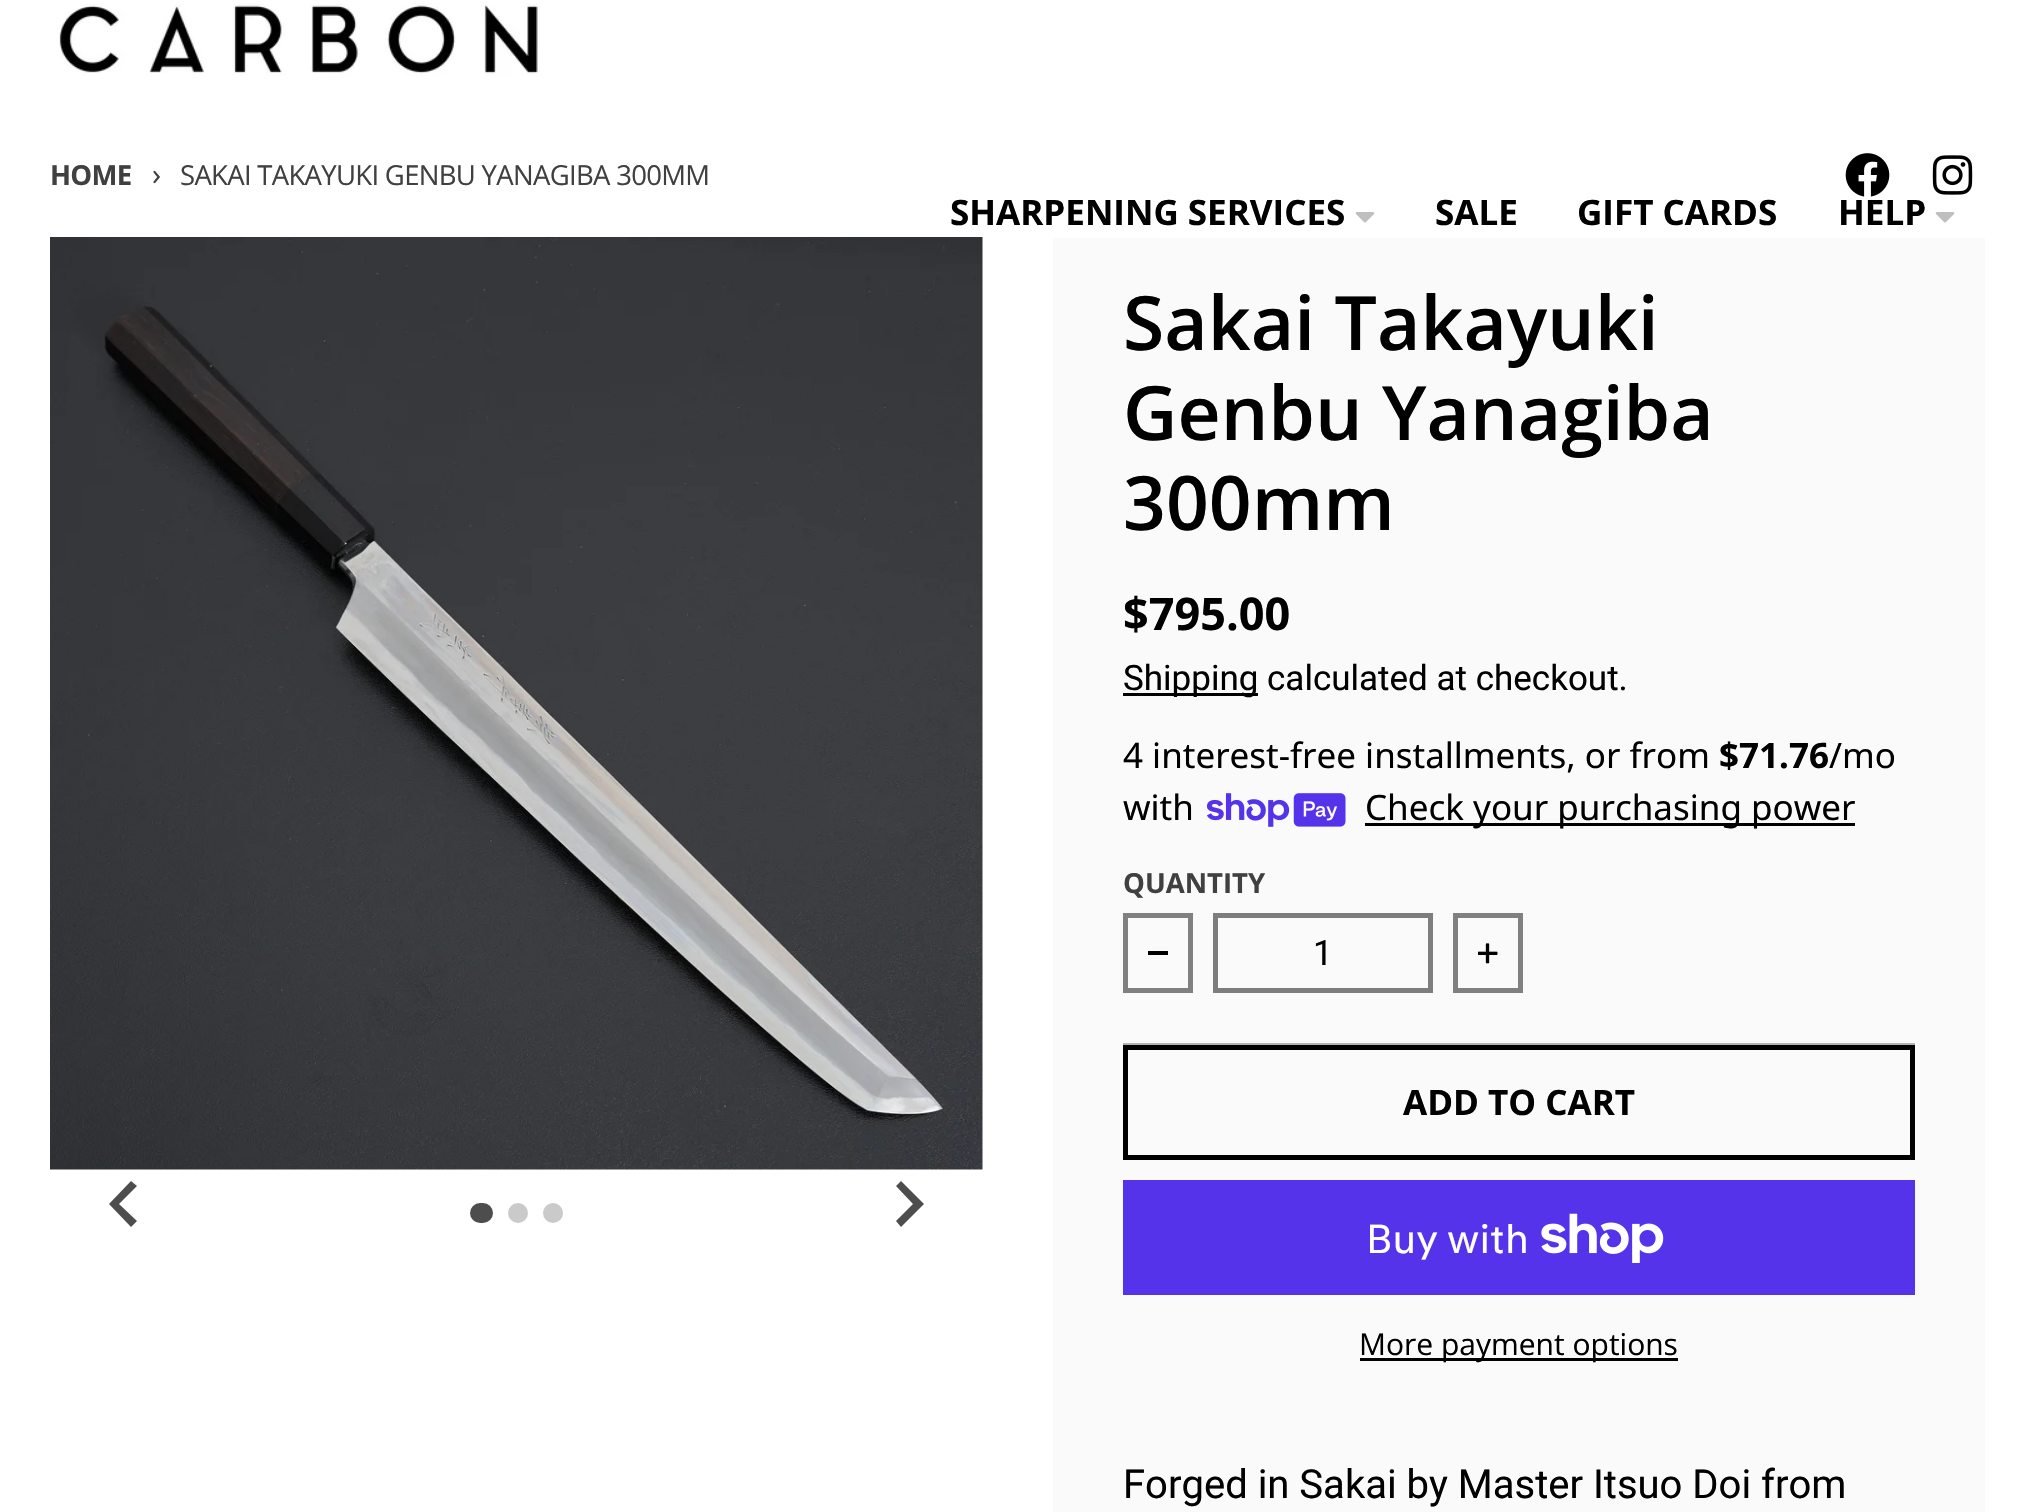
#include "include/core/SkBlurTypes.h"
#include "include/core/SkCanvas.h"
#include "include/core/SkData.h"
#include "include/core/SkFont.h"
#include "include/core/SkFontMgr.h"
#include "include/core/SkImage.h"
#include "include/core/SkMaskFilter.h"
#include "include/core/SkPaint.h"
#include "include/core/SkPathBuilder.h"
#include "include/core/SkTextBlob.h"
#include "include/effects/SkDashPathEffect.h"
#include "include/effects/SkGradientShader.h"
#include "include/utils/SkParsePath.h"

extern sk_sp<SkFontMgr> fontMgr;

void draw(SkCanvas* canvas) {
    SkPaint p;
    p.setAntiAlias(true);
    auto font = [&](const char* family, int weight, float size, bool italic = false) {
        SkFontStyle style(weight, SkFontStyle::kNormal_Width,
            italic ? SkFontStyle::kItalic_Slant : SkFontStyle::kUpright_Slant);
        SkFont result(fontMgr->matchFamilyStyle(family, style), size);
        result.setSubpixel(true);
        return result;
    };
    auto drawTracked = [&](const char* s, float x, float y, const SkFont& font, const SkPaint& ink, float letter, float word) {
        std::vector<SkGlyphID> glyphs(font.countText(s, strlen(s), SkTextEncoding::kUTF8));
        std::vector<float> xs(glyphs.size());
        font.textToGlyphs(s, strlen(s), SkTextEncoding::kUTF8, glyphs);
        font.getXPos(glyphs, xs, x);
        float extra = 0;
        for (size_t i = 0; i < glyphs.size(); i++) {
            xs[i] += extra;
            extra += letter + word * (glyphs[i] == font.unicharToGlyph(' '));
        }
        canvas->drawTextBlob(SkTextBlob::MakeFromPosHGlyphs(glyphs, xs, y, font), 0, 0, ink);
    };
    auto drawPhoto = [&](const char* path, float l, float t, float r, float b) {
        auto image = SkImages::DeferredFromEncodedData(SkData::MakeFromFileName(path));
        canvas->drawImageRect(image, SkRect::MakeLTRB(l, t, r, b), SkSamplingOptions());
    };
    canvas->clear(0xFFFFFFFF);
    auto font1 = font("Open Sans", 700, 27.5f);
    p.setColor(0xFF404040);
    drawTracked("HOME", 50, 185, font1, p, -0.7f, 0);
    auto font2 = font("Open Sans", 400, 30);
    drawTracked("›", 152, 185, font2, p, -0.7f, 0);
    auto font3 = font("Open Sans", 400, 27.5f);
    drawTracked("SAKAI TAKAYUKI GENBU YANAGIBA 300MM", 180, 185, font3, p, -0.7f, 0);
    drawPhoto("media/1.png", 1845, 153, 1890, 197);
    drawPhoto("media/2.png", 1932, 155, 1973, 195);
    drawPhoto("media/3.png", 50, 237, 983, 1170);
    p.setColor(0xFF4D4D4D);
    canvas->drawPath(SkPathBuilder().moveTo(131, 1181).lineTo(137, 1186).lineTo(119, 1204).lineTo(137, 1221).lineTo(131, 1227).lineTo(109, 1204).close().detach(), p);
    canvas->drawPath(SkPathBuilder().moveTo(901, 1181).lineTo(896, 1186).lineTo(913, 1204).lineTo(896, 1221).lineTo(901, 1227).lineTo(924, 1204).close().detach(), p);
    canvas->drawRoundRect(SkRect::MakeLTRB(470, 1203, 493, 1223), 10, 10, p);
    p.setColor(0xFFCACACA);
    canvas->drawCircle(518, 1213, 10, p);
    canvas->drawCircle(553, 1213, 10, p);
    p.setColor(0xFFFAFAFA);
    canvas->drawRect(SkRect::MakeLTRB(1053, 238, 1985, 1512), p);
    auto font4 = font("Open Sans", 600, 75);
    p.setColor(0xFF000000);
    {
        const struct { const char* s; float x, y; } items[] = {
            {"Sakai Takayuki", 1123, 350},
            {"Genbu Yanagiba", 1123, 440},
            {"300mm", 1123, 530},
        };
        for (auto [s, x, y] : items) {
            canvas->drawString(s, x, y, font4, p);
        }
    }
    auto font5 = font("Open Sans", 700, 45);
    canvas->drawString("$795.00", 1123, 630, font5, p);
    canvas->drawRect(SkRect::MakeLTRB(1123, 693, 1258, 696), p);
    auto font6 = font("Roboto", 400, 35);
    canvas->drawString("Shipping calculated at checkout.", 1123, 690, font6, p);
    auto font7 = font("Noto Sans", 400, 35);
    canvas->drawString("4 interest-free installments, or from", 1123, 768, font7, p);
    auto font8 = font("Noto Sans", 700, 35);
    canvas->drawString("$71.76", 1719, 768, font8, p);
    canvas->drawString("/mo", 1829, 768, font7, p);
    canvas->drawString("with", 1123, 820, font7, p);
    drawPhoto("media/4.png", 1207, 793, 1346, 827);
    canvas->drawRect(SkRect::MakeLTRB(1365, 823, 1855, 826), p);
    canvas->drawString("Check your purchasing power", 1365, 820, font7, p);
    p.setColor(0xFF404040);
    canvas->drawString("QUANTITY", 1123, 893, font1, p);
    p.setStyle(SkPaint::kStroke_Style);
    p.setStrokeWidth(5);
    p.setColor(0xFF808080);
    canvas->drawRect(SkRect::MakeLTRB(1125.5f, 915.5f, 1190.5f, 990.5f), p);
    p.setStyle(SkPaint::kFill_Style);
    p.setColor(0xFF000000);
    canvas->drawRect(SkRect::MakeLTRB(1148, 951, 1168, 955), p);
    p.setStyle(SkPaint::kStroke_Style);
    p.setColor(0xFF7D7D7D);
    canvas->drawRect(SkRect::MakeLTRB(1215.5f, 915.5f, 1430.5f, 990.5f), p);
    p.setStyle(SkPaint::kFill_Style);
    p.setColor(0xFF000000);
    canvas->drawString("1", 1313, 965, font6, p);
    p.setStyle(SkPaint::kStroke_Style);
    p.setColor(0xFF808080);
    canvas->drawRect(SkRect::MakeLTRB(1455.5f, 915.5f, 1520.5f, 990.5f), p);
    drawPhoto("media/5.png", 1478, 943, 1498, 964);
    p.setStyle(SkPaint::kFill_Style);
    p.setColor(0xFFB3B3B3);
    canvas->drawRect(SkRect::MakeLTRB(1123, 1043, 1915, 1045), p);
    p.setStyle(SkPaint::kStroke_Style);
    p.setColor(0xFF000000);
    canvas->drawRect(SkRect::MakeLTRB(1125.5f, 1047.5f, 1912.5f, 1157.5f), p);
    auto font9 = font("Open Sans", 700, 35);
    p.setStyle(SkPaint::kFill_Style);
    canvas->drawString("ADD TO CART", 1403, 1115, font9, p);
    p.setColor(0xFF5433EB);
    canvas->drawRect(SkRect::MakeLTRB(1123, 1180, 1915, 1295), p);
    auto font10 = font("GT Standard", 400, 40);
    p.setColor(0xFFFFFFFF);
    canvas->drawString("Buy with", 1366, 1253, font10, p);
    drawPhoto("media/6.png", 1541, 1213, 1664, 1263);
    p.setColor(0xFF000000);
    canvas->drawRect(SkRect::MakeLTRB(1360, 1358, 1678, 1361), p);
    canvas->drawString("More payment options", 1359, 1355, font2, p);
    auto font11 = font("Roboto", 400, 40);
    canvas->drawString("Forged in Sakai by Master Itsuo Doi from", 1123, 1498, font11, p);
    drawPhoto("media/7.png", 59, 3, 540, 76);
    canvas->drawString("SHARPENING SERVICES", 950, 225, font9, p);
    drawPhoto("media/8.png", 1355, 212, 1375, 223);
    {
        const struct { const char* s; float x, y; } items[] = {
            {"SALE", 1435, 225},
            {"GIFT CARDS", 1577, 225},
            {"HELP", 1838, 225},
        };
        for (auto [s, x, y] : items) {
            canvas->drawString(s, x, y, font9, p);
        }
    }
    drawPhoto("media/8.png", 1935, 212, 1955, 223);
}
